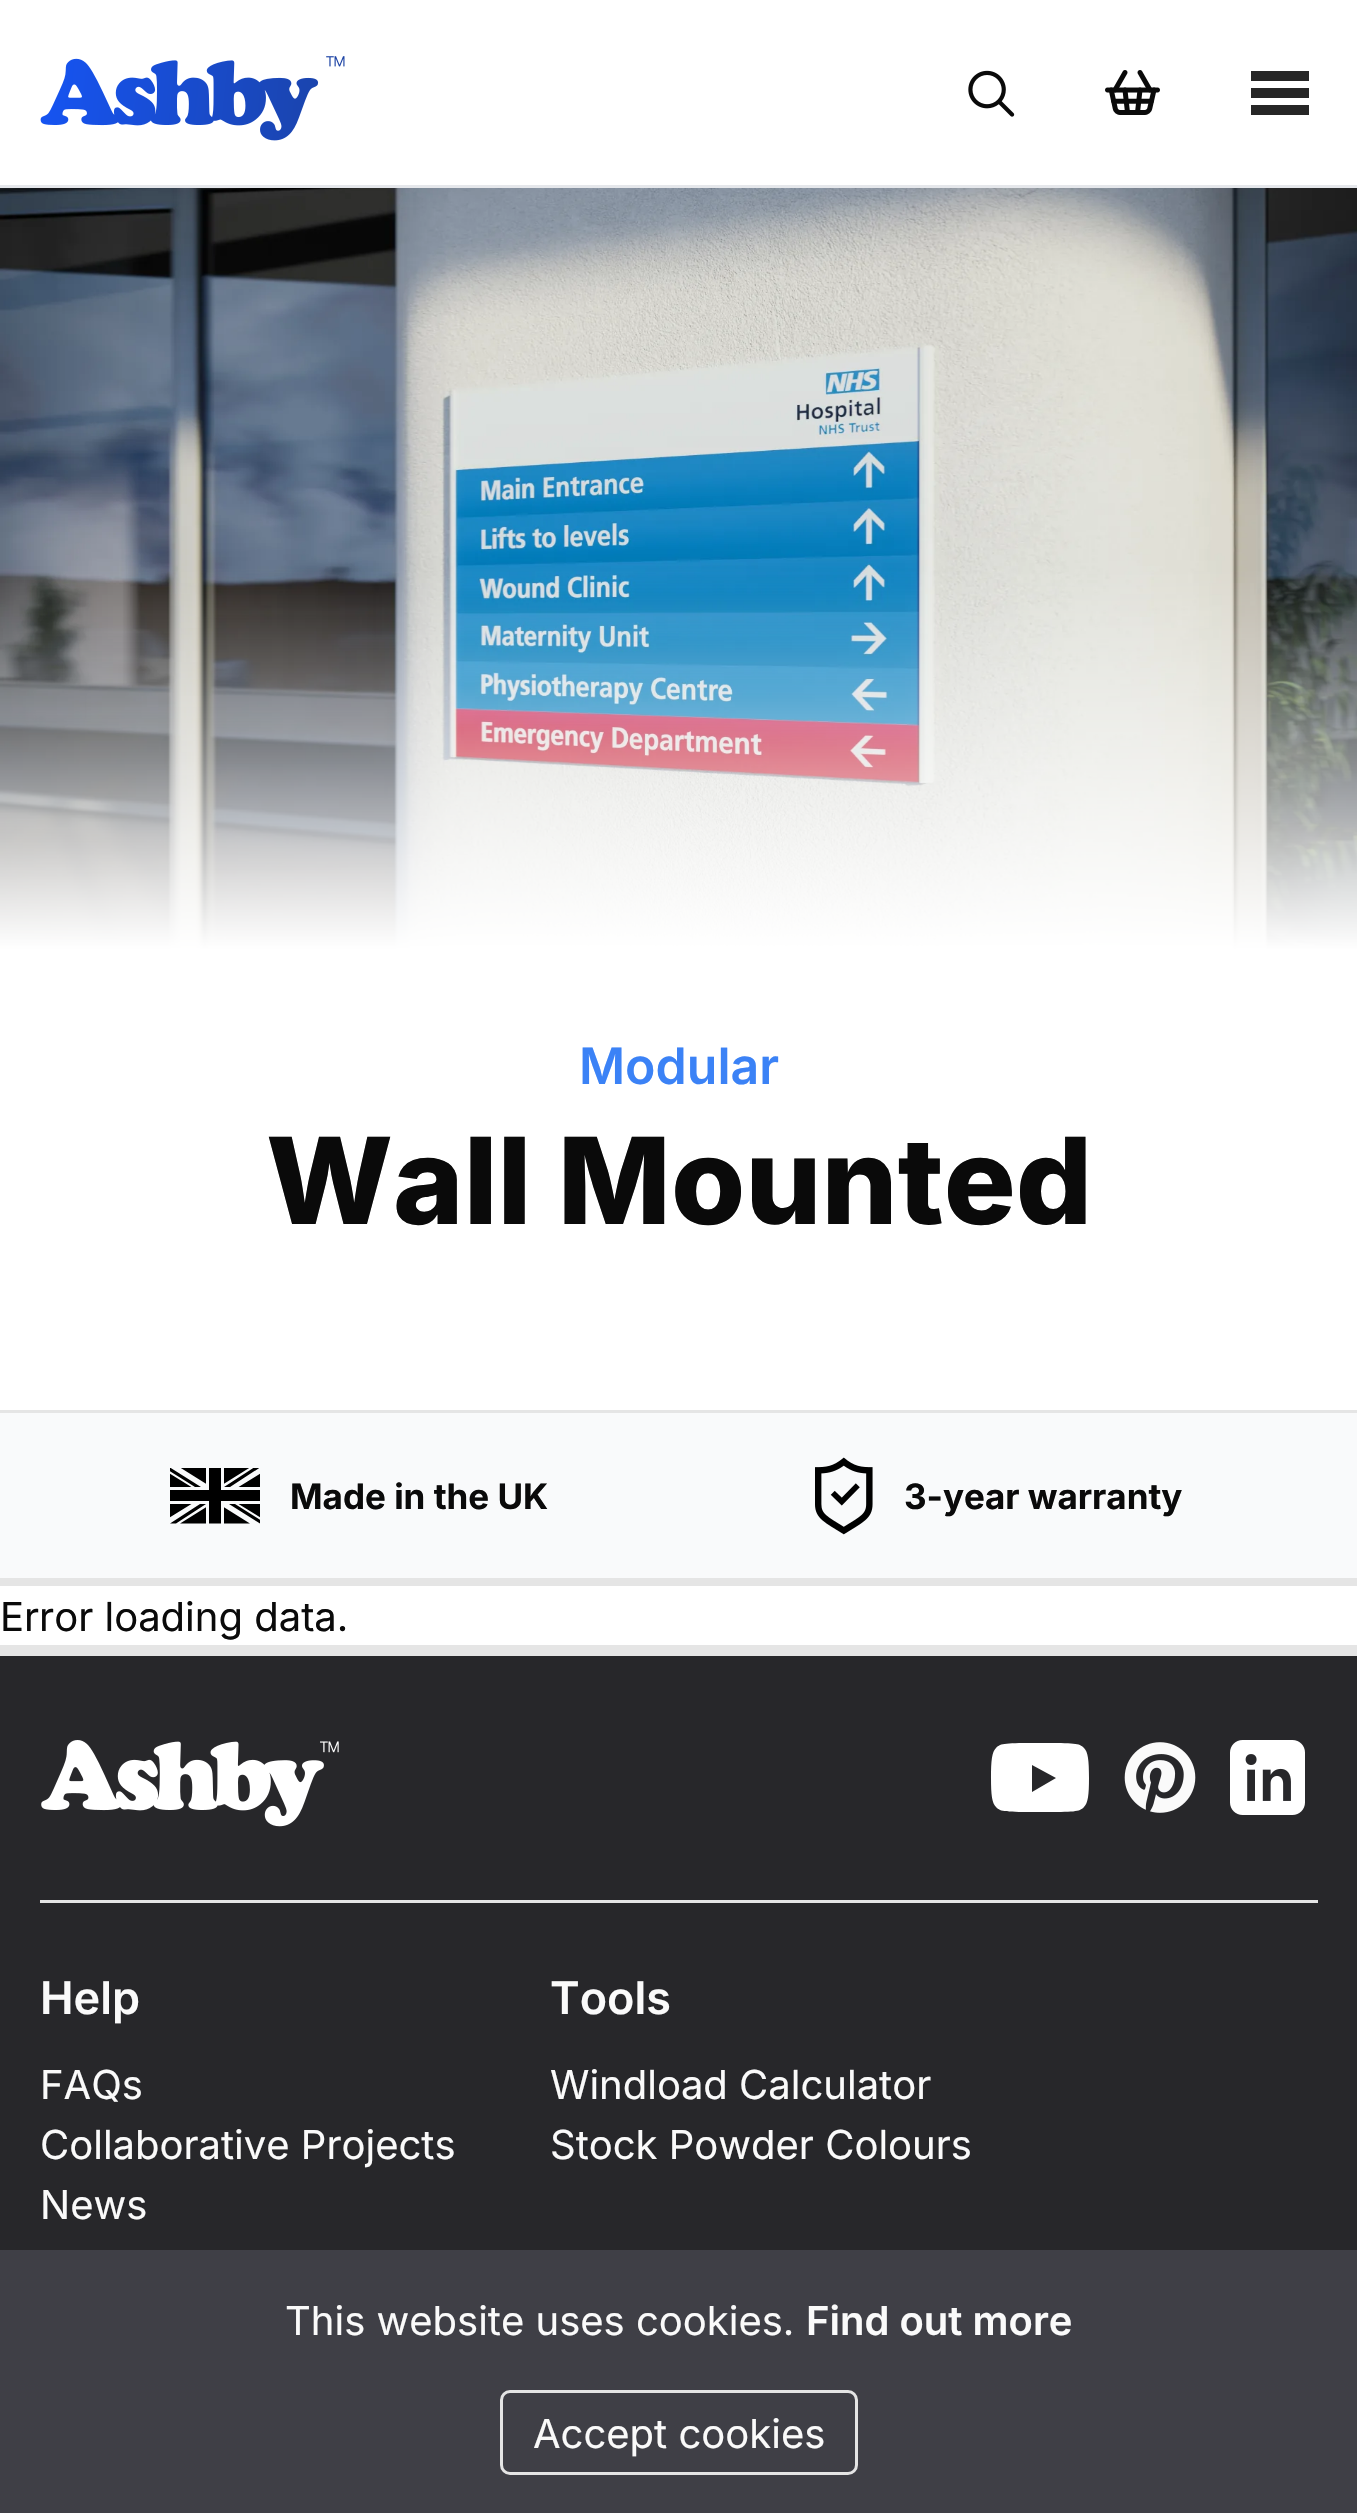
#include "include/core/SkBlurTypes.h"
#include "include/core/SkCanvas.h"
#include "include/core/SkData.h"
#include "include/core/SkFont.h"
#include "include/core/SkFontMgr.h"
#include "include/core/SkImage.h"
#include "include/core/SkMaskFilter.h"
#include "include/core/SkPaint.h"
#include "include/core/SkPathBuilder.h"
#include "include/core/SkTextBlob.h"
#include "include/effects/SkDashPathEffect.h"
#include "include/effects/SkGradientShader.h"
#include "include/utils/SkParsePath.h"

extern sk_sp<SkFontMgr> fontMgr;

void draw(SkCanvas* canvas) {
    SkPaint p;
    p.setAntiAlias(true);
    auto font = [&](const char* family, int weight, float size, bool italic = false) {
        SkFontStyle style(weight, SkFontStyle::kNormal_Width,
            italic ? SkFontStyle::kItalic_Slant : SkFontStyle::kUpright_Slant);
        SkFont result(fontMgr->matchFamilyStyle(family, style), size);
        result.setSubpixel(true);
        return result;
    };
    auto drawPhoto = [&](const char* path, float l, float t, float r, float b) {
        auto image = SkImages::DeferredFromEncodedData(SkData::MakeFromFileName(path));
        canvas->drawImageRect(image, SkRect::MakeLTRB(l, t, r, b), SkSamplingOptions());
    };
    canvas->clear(0xFFFFFFFF);
    p.setColor(0xFFE5E7EB);
    canvas->drawRect(SkRect::MakeLTRB(0, 185, 1357, 188), p);
    drawPhoto("media/1.png", 40, 56, 345, 141);
    drawPhoto("media/2.png", 968, 70, 1015, 117);
    drawPhoto("media/3.png", 1105, 70, 1160, 115);
    {
        const struct { float l, t, r, b; SkColor color; } items[] = {
            {1251, 71, 1309, 81, 0xFF262626},
            {1251, 88, 1309, 98, 0xFF262626},
            {1251, 105, 1309, 115, 0xFF262626},
        };
        for (auto [l, t, r, b, color] : items) {
            p.setColor(color);
            canvas->drawRect(SkRect::MakeLTRB(l, t, r, b), p);
        }
    }
    drawPhoto("media/4.png", 0, 188, 1357, 950);
    auto font1 = font("Inter", 600, 50);
    p.setColor(0xFF3B82F6);
    canvas->drawString("Modular", 579, 1084, font1, p);
    auto font2 = font("Inter", 800, 120);
    p.setColor(0xFF0A0A0A);
    canvas->drawString("Wall Mounted", 266, 1224, font2, p);
    p.setColor(0xFFE5E5E5);
    canvas->drawRect(SkRect::MakeLTRB(0, 1410, 1357, 1413), p);
    p.setColor(0xFFF9FAFB);
    canvas->drawRect(SkRect::MakeLTRB(0, 1413, 1357, 1578), p);
    drawPhoto("media/5.png", 170, 1468, 260, 1524);
    auto font3 = font("Inter", 700, 35);
    p.setColor(0xFF0A0A0A);
    canvas->drawString("Made in the UK", 290, 1509, font3, p);
    drawPhoto("media/6.png", 815, 1457, 873, 1535);
    canvas->drawString("3-year warranty", 904, 1509, font3, p);
    p.setColor(0xFFE5E5E5);
    canvas->drawRect(SkRect::MakeLTRB(0, 1578, 1357, 1586), p);
    auto font4 = font("Inter", 400, 40);
    p.setColor(0xFF0A0A0A);
    canvas->drawString("Error loading data.", 0, 1631, font4, p);
    p.setColor(0xFFE5E5E5);
    canvas->drawRect(SkRect::MakeLTRB(0, 1645, 1357, 1656), p);
    p.setColor(0xFF3F3F46);
    canvas->drawRect(SkRect::MakeLTRB(0, 2250, 1357, 2513), p);
    p.setColor(0xFFFAFAFA);
    canvas->drawString("This website uses cookies.", 285, 2335, font4, p);
    auto font5 = font("Inter", 600, 40);
    canvas->drawString("Find out more", 806, 2335, font5, p);
    p.setStyle(SkPaint::kStroke_Style);
    p.setStrokeWidth(3);
    p.setColor(0xFFE5E5E5);
    canvas->drawRoundRect(SkRect::MakeLTRB(501.5f, 2391.5f, 856.5f, 2473.5f), 8.5f, 8.5f, p);
    p.setStyle(SkPaint::kFill_Style);
    p.setColor(0xFFFAFAFA);
    canvas->drawString("Accept cookies", 533, 2448, font4, p);
    p.setColor(0xFF27272A);
    canvas->drawRect(SkRect::MakeLTRB(0, 1656, 1357, 2250), p);
    drawPhoto("media/7.png", 41, 1740, 339, 1827);
    p.setColor(0xFFFFFFFF);
    canvas->drawPath(SkPathBuilder().moveTo(1084, 1748).cubicTo(1088, 1752, 1089, 1760, 1089, 1778).cubicTo(1089, 1795, 1088, 1803, 1084, 1807).cubicTo(1079, 1812, 1075, 1812, 1040, 1812).cubicTo(1005, 1812, 1001, 1812, 996, 1807).cubicTo(992, 1803, 991, 1795, 991, 1778).cubicTo(991, 1760, 992, 1752, 996, 1748).cubicTo(1001, 1743, 1005, 1743, 1040, 1743).cubicTo(1075, 1743, 1079, 1743, 1084, 1748).close().moveTo(1032, 1792).lineTo(1056, 1778).lineTo(1032, 1765).close().detach(), p);
    drawPhoto("media/8.png", 1124, 1742, 1196, 1813);
    drawPhoto("media/9.png", 1230, 1740, 1305, 1815);
    p.setColor(0xFFE5E5E5);
    canvas->drawRect(SkRect::MakeLTRB(40, 1900, 1318, 1903), p);
    auto font6 = font("Inter", 600, 45);
    p.setColor(0xFFFAFAFA);
    canvas->drawString("Help", 40, 2014, font6, p);
    {
        const struct { const char* s; float x, y; } items[] = {
            {"FAQs", 40, 2099},
            {"Collaborative Projects", 40, 2159},
            {"News", 40, 2219},
        };
        for (auto [s, x, y] : items) {
            canvas->drawString(s, x, y, font4, p);
        }
    }
    canvas->drawString("Tools", 550, 2014, font6, p);
    canvas->drawString("Windload Calculator", 550, 2099, font4, p);
    canvas->drawString("Stock Powder Colours", 550, 2159, font4, p);
}
